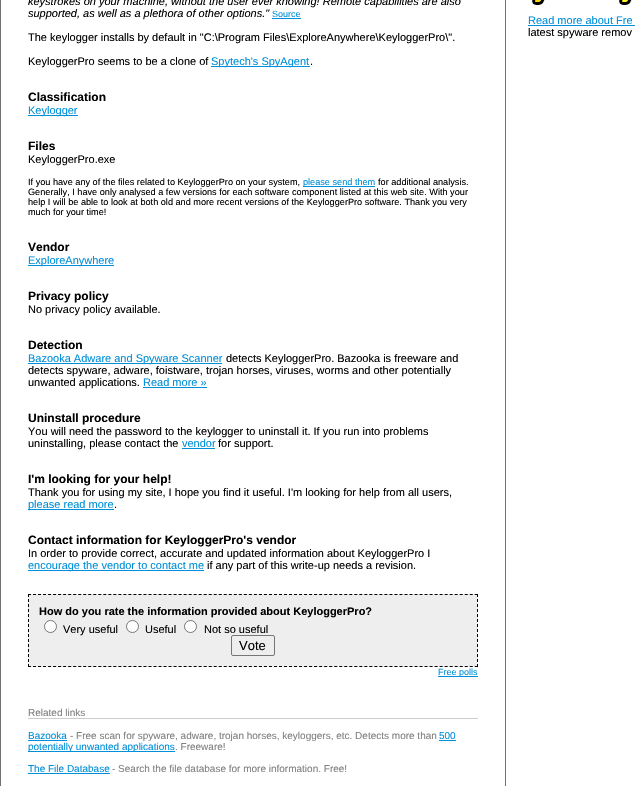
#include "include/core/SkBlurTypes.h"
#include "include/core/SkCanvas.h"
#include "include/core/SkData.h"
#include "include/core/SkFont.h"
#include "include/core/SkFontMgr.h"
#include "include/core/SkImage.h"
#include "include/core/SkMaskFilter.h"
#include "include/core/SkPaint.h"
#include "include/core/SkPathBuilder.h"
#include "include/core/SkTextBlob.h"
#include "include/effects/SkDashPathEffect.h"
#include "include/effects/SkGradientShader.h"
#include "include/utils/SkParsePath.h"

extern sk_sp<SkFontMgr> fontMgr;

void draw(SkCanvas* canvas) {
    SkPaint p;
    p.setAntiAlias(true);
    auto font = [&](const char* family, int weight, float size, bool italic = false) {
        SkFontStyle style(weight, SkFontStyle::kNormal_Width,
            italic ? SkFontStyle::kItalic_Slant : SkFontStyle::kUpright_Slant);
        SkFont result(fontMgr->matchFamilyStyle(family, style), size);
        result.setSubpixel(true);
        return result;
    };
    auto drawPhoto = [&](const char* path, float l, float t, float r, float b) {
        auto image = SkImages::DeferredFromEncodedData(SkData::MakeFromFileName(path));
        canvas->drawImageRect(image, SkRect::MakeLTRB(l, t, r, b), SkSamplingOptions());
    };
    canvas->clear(0xFFFFFFFF);
    p.setColor(0xFF717171);
    canvas->drawRect(SkRect::MakeLTRB(0, 0, 1, 786), p);
    auto font1 = font("Liberation Sans", 400, 11, true);
    p.setColor(0xFF000000);
    canvas->drawString("keystrokes on your machine, without the user ever knowing! Remote capabilities are also", 28, 5, font1, p);
    canvas->drawString("supported, as well as a plethora of other options.\"", 28, 17, font1, p);
    auto font2 = font("Liberation Sans", 400, 9);
    p.setColor(0xFF008FD9);
    canvas->drawString("Source", 272, 17, font2, p);
    canvas->drawRect(SkRect::MakeLTRB(272, 18, 301, 19), p);
    auto font3 = font("Liberation Sans", 400, 11);
    p.setColor(0xFF000000);
    canvas->drawString("The keylogger installs by default in \"C:\\Program Files\\ExploreAnywhere\\KeyloggerPro\\\".", 28, 41, font3, p);
    canvas->drawString("KeyloggerPro seems to be a clone of", 28, 65, font3, p);
    p.setColor(0xFF008FD9);
    canvas->drawRect(SkRect::MakeLTRB(211, 66, 310, 67), p);
    canvas->drawString("Spytech's SpyAgent", 211, 65, font3, p);
    p.setColor(0xFF000000);
    canvas->drawString(".", 310, 65, font3, p);
    auto font4 = font("Liberation Sans", 700, 12);
    canvas->drawString("Classification", 28, 101, font4, p);
    p.setColor(0xFF008FD9);
    canvas->drawRect(SkRect::MakeLTRB(28, 115, 78, 116), p);
    canvas->drawString("Keylogger", 28, 114, font3, p);
    p.setColor(0xFF000000);
    canvas->drawString("Files", 28, 150, font4, p);
    canvas->drawString("KeyloggerPro.exe", 28, 163, font3, p);
    auto font5 = font("Liberation Sans", 400, 9.15f);
    canvas->drawString("If you have any of the files related to KeyloggerPro on your system,", 28, 185, font5, p);
    p.setColor(0xFF008FD9);
    canvas->drawRect(SkRect::MakeLTRB(303, 186, 375, 187), p);
    canvas->drawString("please send them", 303, 185, font5, p);
    p.setColor(0xFF000000);
    {
        const struct { const char* s; float x, y; } items[] = {
            {"for additional analysis.", 378, 185},
            {"Generally, I have only analysed a few versions for each software component listed at this web site. With your", 28, 195},
            {"help I will be able to look at both old and more recent versions of the KeyloggerPro software. Thank you very", 28, 205},
            {"much for your time!", 28, 215},
        };
        for (auto [s, x, y] : items) {
            canvas->drawString(s, x, y, font5, p);
        }
    }
    canvas->drawString("Vendor", 28, 251, font4, p);
    p.setColor(0xFF008FD9);
    canvas->drawRect(SkRect::MakeLTRB(28, 265, 114, 266), p);
    canvas->drawString("ExploreAnywhere", 28, 264, font3, p);
    p.setColor(0xFF000000);
    canvas->drawString("Privacy policy", 28, 300, font4, p);
    canvas->drawString("No privacy policy available.", 28, 313, font3, p);
    canvas->drawString("Detection", 28, 349, font4, p);
    p.setColor(0xFF008FD9);
    canvas->drawRect(SkRect::MakeLTRB(28, 363, 222, 364), p);
    canvas->drawString("Bazooka Adware and Spyware Scanner", 28, 362, font3, p);
    p.setColor(0xFF000000);
    {
        const struct { const char* s; float x, y; } items[] = {
            {"detects KeyloggerPro. Bazooka is freeware and", 226, 362},
            {"detects spyware, adware, foistware, trojan horses, viruses, worms and other potentially", 28, 374},
            {"unwanted applications.", 28, 386},
        };
        for (auto [s, x, y] : items) {
            canvas->drawString(s, x, y, font3, p);
        }
    }
    p.setColor(0xFF008FD9);
    canvas->drawString("Read more »", 143, 386, font3, p);
    canvas->drawRect(SkRect::MakeLTRB(143, 387, 207, 388), p);
    p.setColor(0xFF000000);
    canvas->drawString("Uninstall procedure", 28, 422, font4, p);
    canvas->drawString("You will need the password to the keylogger to uninstall it. If you run into problems", 28, 435, font3, p);
    canvas->drawString("uninstalling, please contact the", 28, 447, font3, p);
    p.setColor(0xFF008FD9);
    canvas->drawString("vendor", 182, 447, font3, p);
    canvas->drawRect(SkRect::MakeLTRB(182, 448, 215, 449), p);
    p.setColor(0xFF000000);
    canvas->drawString("for support.", 218, 447, font3, p);
    canvas->drawString("I'm looking for your help!", 28, 483, font4, p);
    canvas->drawString("Thank you for using my site, I hope you find it useful. I'm looking for help from all users,", 28, 496, font3, p);
    p.setColor(0xFF008FD9);
    canvas->drawRect(SkRect::MakeLTRB(28, 509, 114, 510), p);
    canvas->drawString("please read more", 28, 508, font3, p);
    p.setColor(0xFF000000);
    canvas->drawString(".", 114, 508, font3, p);
    canvas->drawString("Contact information for KeyloggerPro's vendor", 28, 544, font4, p);
    canvas->drawString("In order to provide correct, accurate and updated information about KeyloggerPro I", 28, 557, font3, p);
    p.setColor(0xFF008FD9);
    canvas->drawRect(SkRect::MakeLTRB(28, 570, 204, 571), p);
    canvas->drawString("encourage the vendor to contact me", 28, 569, font3, p);
    p.setColor(0xFF000000);
    canvas->drawString("if any part of this write-up needs a revision.", 207, 569, font3, p);
    p.setColor(0xFFEEEEEE);
    canvas->drawRect(SkRect::MakeLTRB(28, 594, 478, 667), p);
    p.setStyle(SkPaint::kStroke_Style);
    p.setStrokeWidth(1);
    p.setColor(0xFF000000);
    p.setPathEffect(SkDashPathEffect::Make({{3, 2.02f}}, 0));
    canvas->drawPath(SkPathBuilder().moveTo(28, 594.5f).lineTo(478, 594.5f).detach(), p);
    p.setPathEffect(nullptr);
    p.setPathEffect(SkDashPathEffect::Make({{3, 2}}, 0));
    canvas->drawPath(SkPathBuilder().moveTo(477.5f, 594).lineTo(477.5f, 667).detach(), p);
    p.setPathEffect(nullptr);
    p.setPathEffect(SkDashPathEffect::Make({{3, 2.02f}}, 0));
    canvas->drawPath(SkPathBuilder().moveTo(28, 666.5f).lineTo(478, 666.5f).detach(), p);
    p.setPathEffect(nullptr);
    p.setPathEffect(SkDashPathEffect::Make({{3, 2}}, 0));
    canvas->drawPath(SkPathBuilder().moveTo(28.5f, 594).lineTo(28.5f, 667).detach(), p);
    p.setPathEffect(nullptr);
    auto font6 = font("Liberation Sans", 700, 11);
    p.setStyle(SkPaint::kFill_Style);
    canvas->drawString("How do you rate the information provided about KeyloggerPro?", 39, 615, font6, p);
    p.setColor(0xFFFFFFFF);
    canvas->drawCircle(50.5f, 626.5f, 6, p);
    p.setStyle(SkPaint::kStroke_Style);
    p.setColor(0xFF767676);
    canvas->drawCircle(50.5f, 626.5f, 6, p);
    p.setStyle(SkPaint::kFill_Style);
    p.setColor(0xFF000000);
    canvas->drawString("Very useful", 63, 633, font3, p);
    p.setColor(0xFFFFFFFF);
    canvas->drawCircle(132.5f, 626.5f, 6, p);
    p.setStyle(SkPaint::kStroke_Style);
    p.setColor(0xFF767676);
    canvas->drawCircle(132.5f, 626.5f, 6, p);
    p.setStyle(SkPaint::kFill_Style);
    p.setColor(0xFF000000);
    canvas->drawString("Useful", 145, 633, font3, p);
    p.setColor(0xFFFFFFFF);
    canvas->drawCircle(190.5f, 626.5f, 6, p);
    p.setStyle(SkPaint::kStroke_Style);
    p.setColor(0xFF767676);
    canvas->drawCircle(190.5f, 626.5f, 6, p);
    p.setStyle(SkPaint::kFill_Style);
    p.setColor(0xFF000000);
    canvas->drawString("Not so useful", 204, 633, font3, p);
    p.setStyle(SkPaint::kStroke_Style);
    p.setColor(0xFF767676);
    canvas->drawRoundRect(SkRect::MakeLTRB(231.5f, 635.5f, 274.5f, 655.5f), 1.5f, 1.5f, p);
    auto font7 = font("Liberation Sans", 400, 13);
    p.setStyle(SkPaint::kFill_Style);
    p.setColor(0xFF000000);
    canvas->drawString("Vote", 239, 650, font7, p);
    p.setColor(0xFF008FD9);
    canvas->drawRect(SkRect::MakeLTRB(438, 676, 478, 677), p);
    canvas->drawString("Free polls", 438, 675, font2, p);
    auto font8 = font("Liberation Sans", 400, 10);
    p.setColor(0xFF808080);
    canvas->drawString("Related links", 28, 716, font8, p);
    p.setColor(0xFFCCCCCC);
    canvas->drawRect(SkRect::MakeLTRB(28, 718, 478, 719), p);
    p.setColor(0xFF008FD9);
    canvas->drawString("Bazooka", 28, 739, font8, p);
    canvas->drawRect(SkRect::MakeLTRB(28, 740, 67, 741), p);
    p.setColor(0xFF808080);
    canvas->drawString("- Free scan for spyware, adware, trojan horses, keyloggers, etc. Detects more than", 70, 739, font8, p);
    p.setColor(0xFF008FD9);
    canvas->drawString("500", 439, 739, font8, p);
    canvas->drawRect(SkRect::MakeLTRB(439, 740, 456, 741), p);
    canvas->drawRect(SkRect::MakeLTRB(28, 751, 175, 752), p);
    canvas->drawString("potentially unwanted applications", 28, 750, font8, p);
    p.setColor(0xFF808080);
    canvas->drawString(". Freeware!", 175, 750, font8, p);
    p.setColor(0xFF008FD9);
    canvas->drawString("The File Database", 28, 772, font8, p);
    canvas->drawRect(SkRect::MakeLTRB(28, 773, 110, 774), p);
    p.setColor(0xFF808080);
    canvas->drawString("- Search the file database for more information. Free!", 112, 772, font8, p);
    p.setColor(0xFF717171);
    canvas->drawRect(SkRect::MakeLTRB(505, 0, 506, 786), p);
    drawPhoto("media/1.png", 532, 0, 632, 5);
    p.setColor(0xFF008FD9);
    canvas->drawString("Read more about Fre", 528, 24, font3, p);
    canvas->drawRect(SkRect::MakeLTRB(528, 25, 635, 26), p);
    p.setColor(0xFF000000);
    canvas->drawString("latest spyware remov", 528, 36, font3, p);
}
